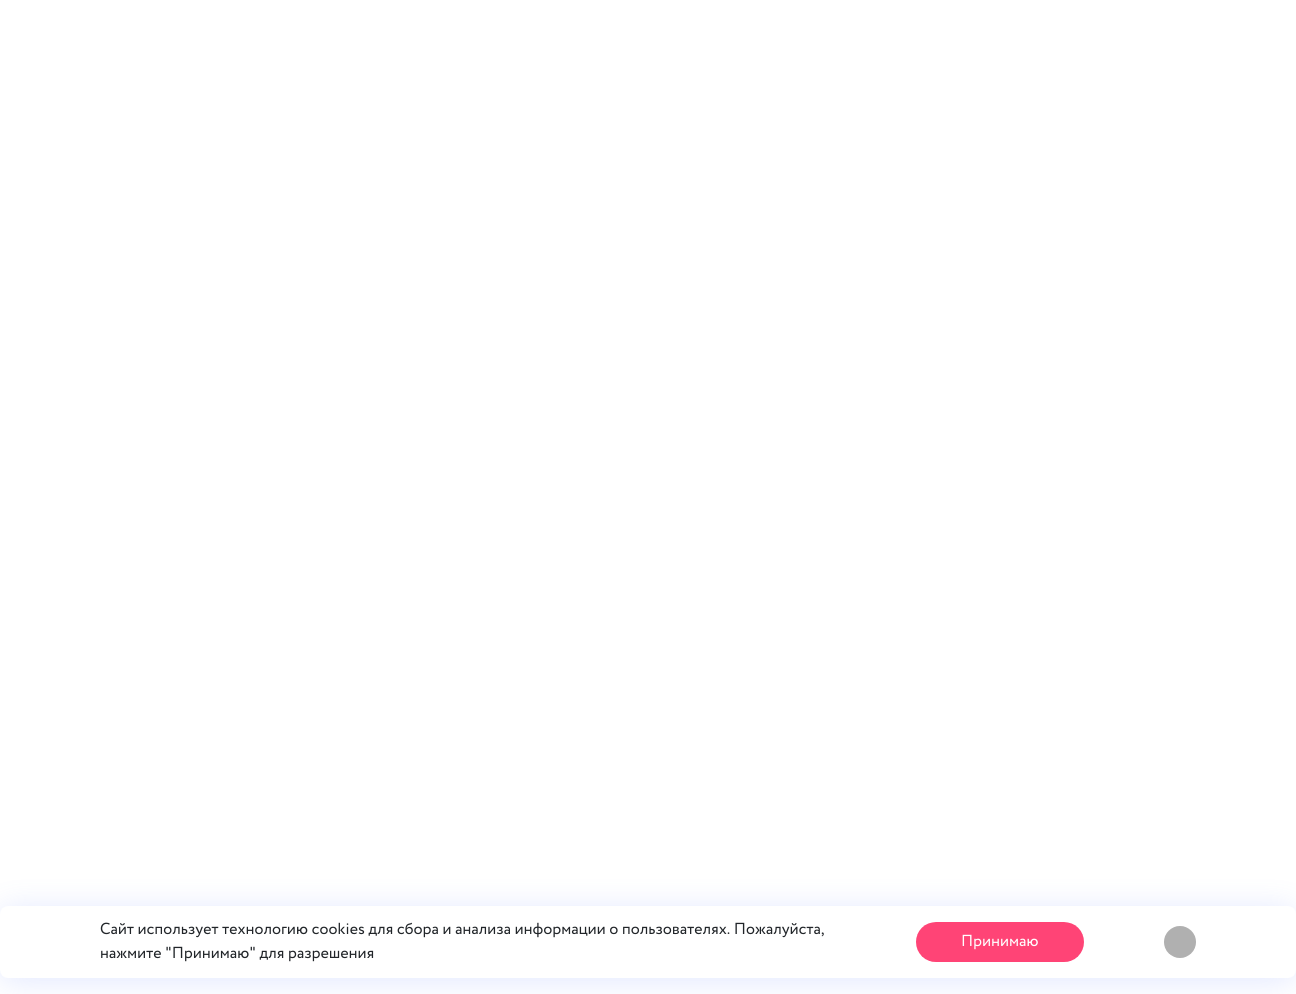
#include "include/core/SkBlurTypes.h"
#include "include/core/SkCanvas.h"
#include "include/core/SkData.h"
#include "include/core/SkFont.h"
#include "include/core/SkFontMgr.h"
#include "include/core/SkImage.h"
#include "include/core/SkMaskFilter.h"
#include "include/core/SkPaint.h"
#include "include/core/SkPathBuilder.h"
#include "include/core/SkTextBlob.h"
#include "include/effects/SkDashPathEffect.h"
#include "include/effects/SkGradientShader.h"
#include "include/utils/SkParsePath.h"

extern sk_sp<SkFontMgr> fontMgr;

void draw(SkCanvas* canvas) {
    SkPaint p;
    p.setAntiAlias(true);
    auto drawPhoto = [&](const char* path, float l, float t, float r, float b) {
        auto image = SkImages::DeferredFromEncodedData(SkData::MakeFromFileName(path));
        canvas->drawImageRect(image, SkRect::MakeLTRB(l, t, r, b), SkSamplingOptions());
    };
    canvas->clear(0xFFFFFFFF);
    p.setColor(0x336B88FF);
    p.setMaskFilter(SkMaskFilter::MakeBlur(kNormal_SkBlurStyle, 16));
    canvas->drawRoundRect(SkRect::MakeLTRB(0, 909, 1296, 981), 8, 8, p);
    p.setMaskFilter(nullptr);
    p.setColor(0xFFFFFFFF);
    canvas->drawRoundRect(SkRect::MakeLTRB(0, 906, 1296, 978), 8, 8, p);
    drawPhoto("media/1.png", 100, 922, 824, 938);
    drawPhoto("media/2.png", 101, 946, 374, 962);
    p.setColor(0xFFFF4476);
    canvas->drawRoundRect(SkRect::MakeLTRB(916, 922, 1084, 962), 20, 20, p);
    drawPhoto("media/3.png", 962, 934, 1038, 950);
    p.setColor(0xFFB0B0B0);
    canvas->drawCircle(1180, 942, 16, p);
}
